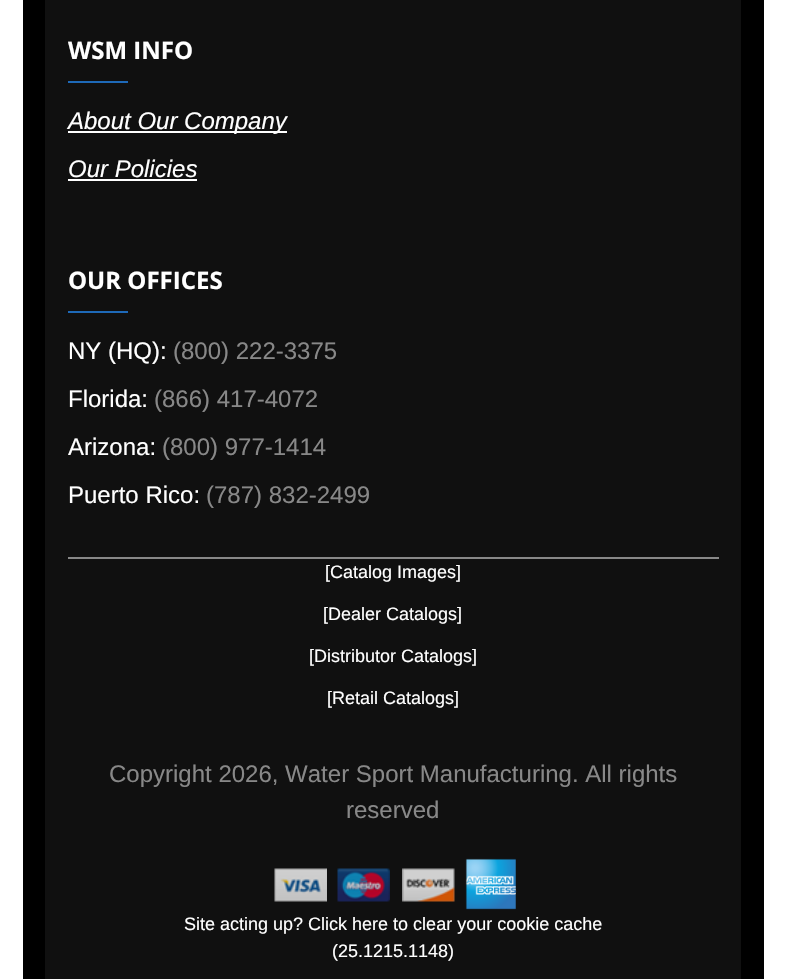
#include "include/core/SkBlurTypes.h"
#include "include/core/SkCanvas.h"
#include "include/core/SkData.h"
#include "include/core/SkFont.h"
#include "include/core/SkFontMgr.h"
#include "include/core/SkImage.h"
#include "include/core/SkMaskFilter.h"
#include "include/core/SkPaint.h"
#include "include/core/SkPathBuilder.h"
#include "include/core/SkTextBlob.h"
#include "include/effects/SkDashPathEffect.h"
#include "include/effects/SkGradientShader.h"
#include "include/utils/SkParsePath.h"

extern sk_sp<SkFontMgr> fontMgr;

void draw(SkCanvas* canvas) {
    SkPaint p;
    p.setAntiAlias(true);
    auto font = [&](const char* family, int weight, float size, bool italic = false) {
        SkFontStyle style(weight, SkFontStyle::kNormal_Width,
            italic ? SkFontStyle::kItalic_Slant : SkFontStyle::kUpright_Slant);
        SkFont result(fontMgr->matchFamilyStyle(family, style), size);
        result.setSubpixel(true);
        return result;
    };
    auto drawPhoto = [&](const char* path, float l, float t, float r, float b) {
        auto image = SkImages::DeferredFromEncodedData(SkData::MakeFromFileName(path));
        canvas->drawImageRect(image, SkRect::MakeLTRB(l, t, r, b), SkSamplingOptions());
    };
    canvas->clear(0xFFFFFFFF);
    p.setColor(0xFF000000);
    canvas->drawRect(SkRect::MakeLTRB(23, 0, 764, 979), p);
    p.setColor(0xFF101010);
    canvas->drawRect(SkRect::MakeLTRB(45, 0, 741, 979), p);
    auto font1 = font("Open Sans", 700, 24);
    p.setColor(0xFFFFFFFF);
    canvas->drawString("WSM INFO", 68, 59, font1, p);
    p.setColor(0xFF1E69B8);
    canvas->drawRect(SkRect::MakeLTRB(68, 81, 128, 83), p);
    p.setColor(0xFFFFFFFF);
    canvas->drawRect(SkRect::MakeLTRB(68, 131, 287, 133), p);
    auto font2 = font("Liberation Sans", 400, 24, true);
    canvas->drawString("About Our Company", 68, 129, font2, p);
    canvas->drawString("Our Policies", 68, 177, font2, p);
    canvas->drawRect(SkRect::MakeLTRB(68, 179, 197, 181), p);
    canvas->drawString("OUR OFFICES", 68, 289, font1, p);
    p.setColor(0xFF1E69B8);
    canvas->drawRect(SkRect::MakeLTRB(68, 311, 128, 313), p);
    auto font3 = font("Liberation Sans", 400, 24);
    p.setColor(0xFFFFFFFF);
    canvas->drawString("NY (HQ):", 68, 359, font3, p);
    p.setColor(0xFF888888);
    canvas->drawString("(800) 222-3375", 173, 359, font3, p);
    p.setColor(0xFFFFFFFF);
    canvas->drawString("Florida:", 68, 407, font3, p);
    p.setColor(0xFF888888);
    canvas->drawString("(866) 417-4072", 154, 407, font3, p);
    p.setColor(0xFFFFFFFF);
    canvas->drawString("Arizona:", 68, 455, font3, p);
    p.setColor(0xFF888888);
    canvas->drawString("(800) 977-1414", 162, 455, font3, p);
    p.setColor(0xFFFFFFFF);
    canvas->drawString("Puerto Rico:", 68, 503, font3, p);
    p.setColor(0xFF888888);
    canvas->drawString("(787) 832-2499", 206, 503, font3, p);
    canvas->drawRect(SkRect::MakeLTRB(68, 557, 719, 559), p);
    auto font4 = font("Liberation Sans", 400, 18);
    p.setColor(0xFFFFFFFF);
    {
        const struct { const char* s; float x, y; } items[] = {
            {"[Catalog Images]", 325, 578},
            {"[Dealer Catalogs]", 323, 620},
            {"[Distributor Catalogs]", 309, 662},
            {"[Retail Catalogs]", 327, 704},
        };
        for (auto [s, x, y] : items) {
            canvas->drawString(s, x, y, font4, p);
        }
    }
    p.setColor(0xFF888888);
    canvas->drawString("Copyright 2026, Water Sport Manufacturing. All rights", 109, 782, font3, p);
    canvas->drawString("reserved", 346, 818, font3, p);
    drawPhoto("media/1.png", 274, 868, 327, 902);
    drawPhoto("media/2.png", 337, 868, 390, 902);
    drawPhoto("media/3.png", 402, 868, 455, 902);
    drawPhoto("media/4.png", 465, 858, 517, 910);
    p.setColor(0xFFFFFFFF);
    canvas->drawString("Site acting up? Click here to clear your cookie cache", 184, 930, font4, p);
    canvas->drawString("(25.1215.1148)", 332, 957, font4, p);
}
